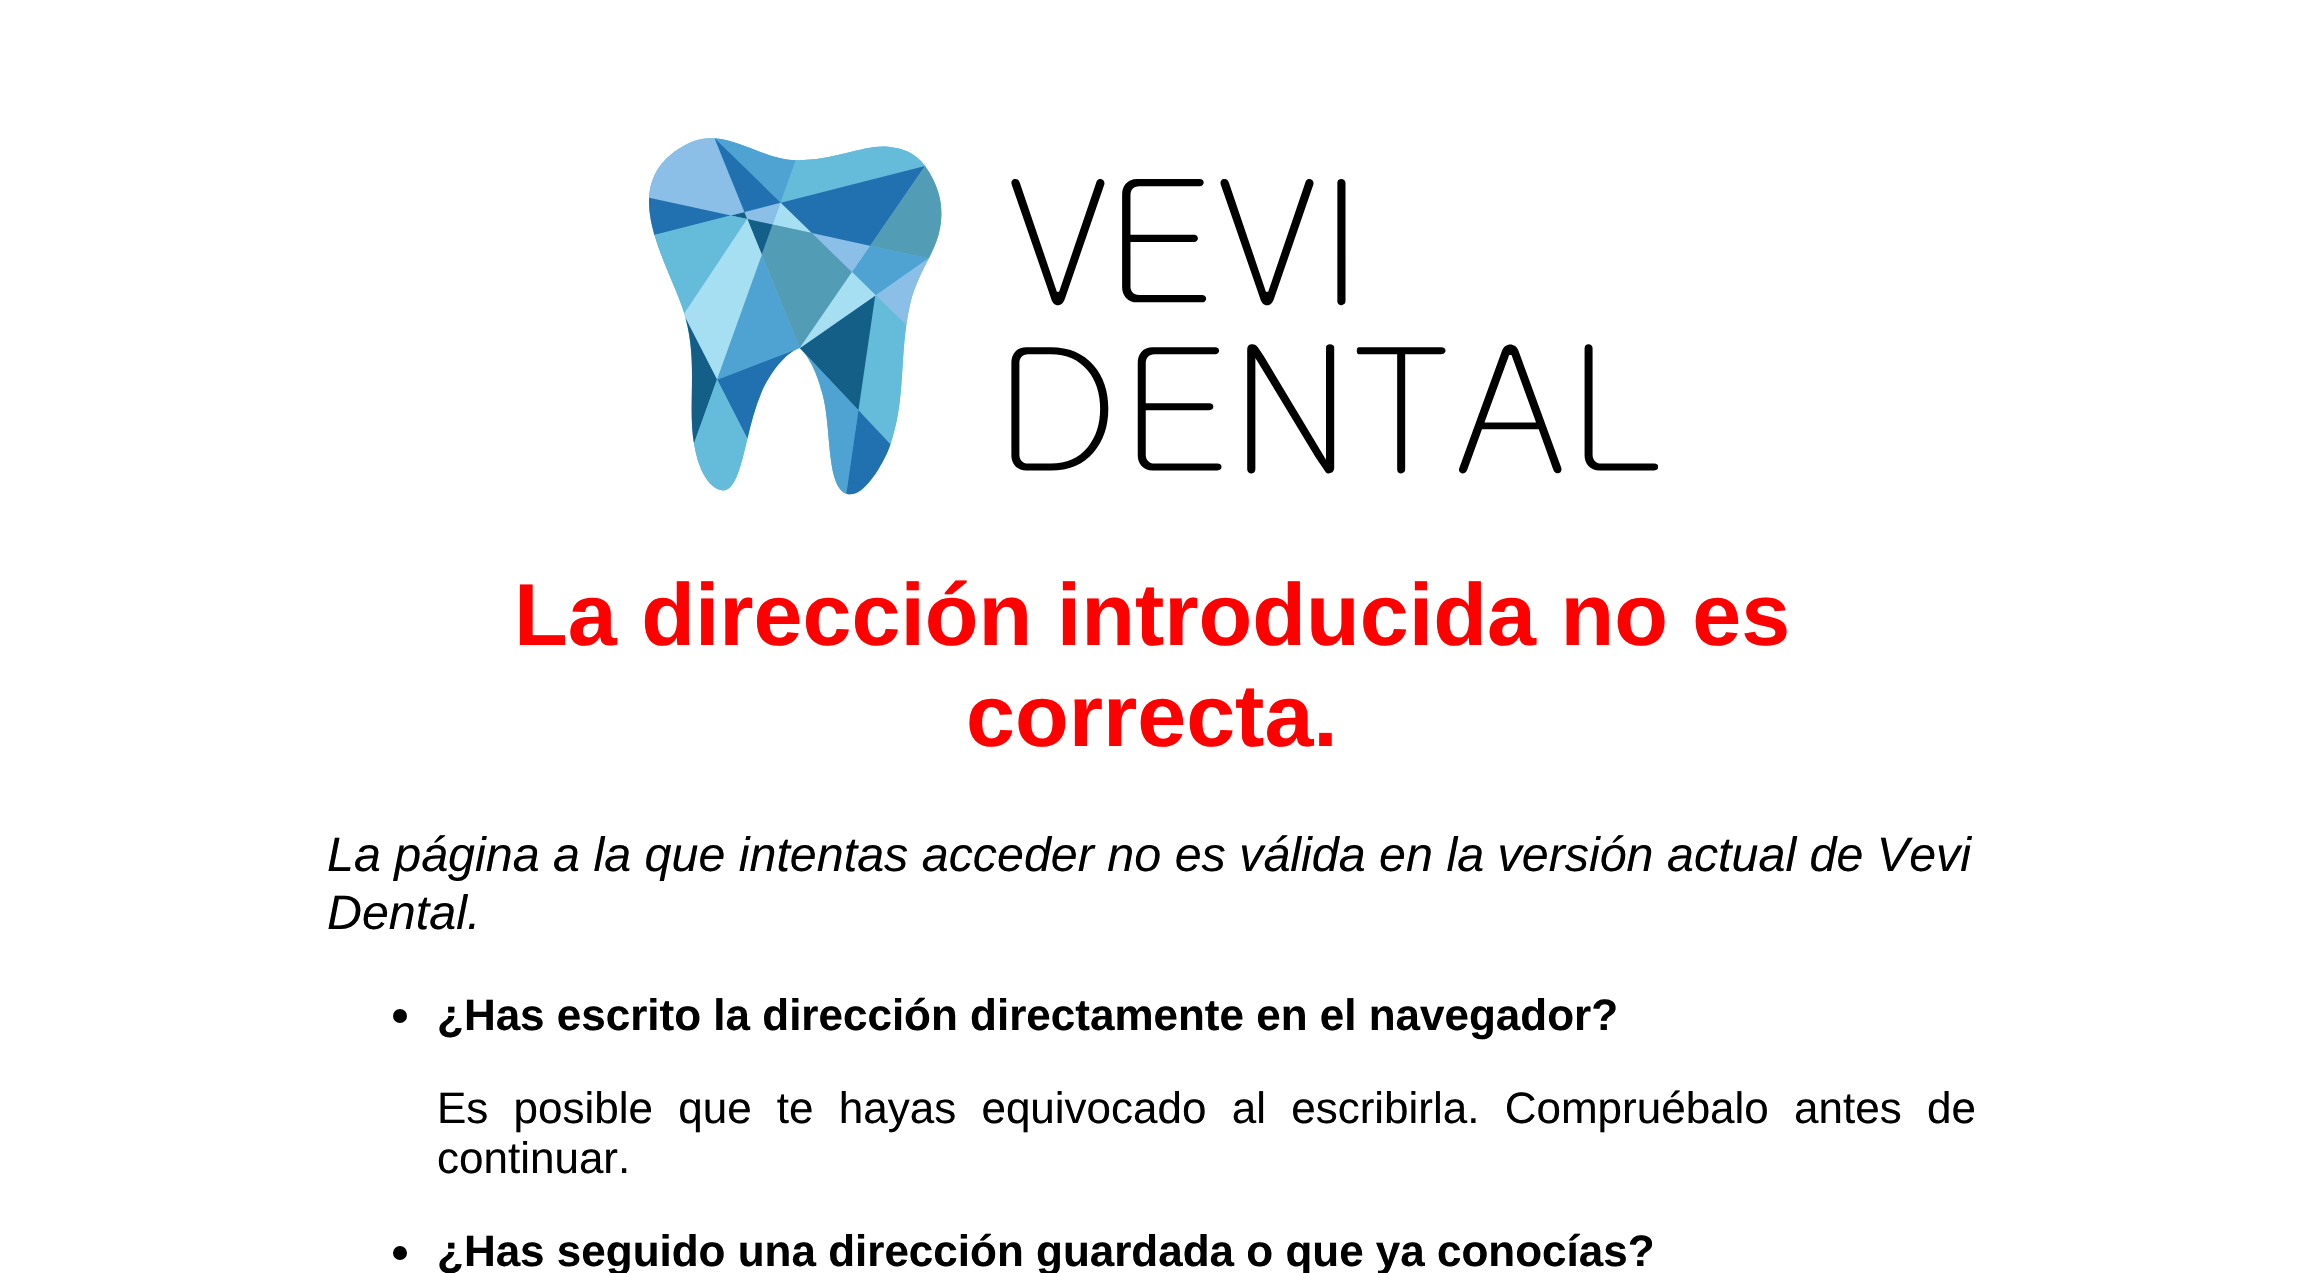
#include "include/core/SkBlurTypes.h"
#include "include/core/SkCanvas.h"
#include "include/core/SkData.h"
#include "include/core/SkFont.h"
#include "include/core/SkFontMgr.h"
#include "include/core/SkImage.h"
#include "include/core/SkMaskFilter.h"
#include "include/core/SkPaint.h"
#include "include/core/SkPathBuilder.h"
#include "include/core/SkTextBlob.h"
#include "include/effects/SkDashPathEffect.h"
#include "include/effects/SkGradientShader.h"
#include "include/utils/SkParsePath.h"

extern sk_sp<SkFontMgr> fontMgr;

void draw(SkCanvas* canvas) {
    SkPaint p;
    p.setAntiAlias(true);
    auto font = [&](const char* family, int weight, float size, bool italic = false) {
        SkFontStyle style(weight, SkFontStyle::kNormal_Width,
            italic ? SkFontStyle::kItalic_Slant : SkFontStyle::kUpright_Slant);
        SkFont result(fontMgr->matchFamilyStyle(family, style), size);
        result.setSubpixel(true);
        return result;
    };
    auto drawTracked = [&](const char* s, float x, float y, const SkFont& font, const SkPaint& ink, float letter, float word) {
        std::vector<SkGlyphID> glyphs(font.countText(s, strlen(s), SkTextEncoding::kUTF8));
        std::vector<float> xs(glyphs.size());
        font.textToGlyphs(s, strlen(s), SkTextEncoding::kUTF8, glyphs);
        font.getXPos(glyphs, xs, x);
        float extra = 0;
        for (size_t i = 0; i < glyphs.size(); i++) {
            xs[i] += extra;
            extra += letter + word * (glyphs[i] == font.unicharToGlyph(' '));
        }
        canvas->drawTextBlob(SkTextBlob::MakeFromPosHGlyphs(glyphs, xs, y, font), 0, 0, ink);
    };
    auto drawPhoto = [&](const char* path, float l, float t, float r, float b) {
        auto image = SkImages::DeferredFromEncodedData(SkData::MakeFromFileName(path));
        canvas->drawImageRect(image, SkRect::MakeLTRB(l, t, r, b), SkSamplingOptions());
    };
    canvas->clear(0xFFFFFFFF);
    drawPhoto("media/1.png", 649, 138, 1658, 495);
    auto font1 = font("Liberation Sans", 700, 88);
    p.setColor(0xFFFF0000);
    canvas->drawString("La dirección introducida no es", 514, 645, font1, p);
    canvas->drawString("correcta.", 966, 746, font1, p);
    auto font2 = font("Liberation Sans", 400, 48.4f, true);
    p.setColor(0xFF000000);
    canvas->drawString("La página a la que intentas acceder no es válida en la versión actual de Vevi", 327, 871, font2, p);
    canvas->drawString("Dental.", 327, 929, font2, p);
    canvas->drawCircle(400, 1016, 7, p);
    auto font3 = font("Liberation Sans", 700, 44);
    canvas->drawString("¿Has escrito la dirección directamente en el navegador?", 437, 1030, font3, p);
    auto font4 = font("Liberation Sans", 400, 44);
    drawTracked("Es posible que te hayas equivocado al escribirla. Compruébalo antes de", 437, 1123, font4, p, 0, 13);
    canvas->drawString("continuar.", 437, 1173, font4, p);
    canvas->drawCircle(400, 1253, 7, p);
    canvas->drawString("¿Has seguido una dirección guardada o que ya conocías?", 437, 1266, font3, p);
}
